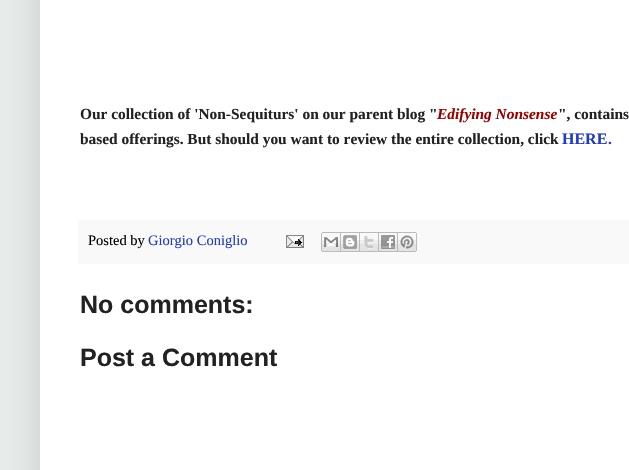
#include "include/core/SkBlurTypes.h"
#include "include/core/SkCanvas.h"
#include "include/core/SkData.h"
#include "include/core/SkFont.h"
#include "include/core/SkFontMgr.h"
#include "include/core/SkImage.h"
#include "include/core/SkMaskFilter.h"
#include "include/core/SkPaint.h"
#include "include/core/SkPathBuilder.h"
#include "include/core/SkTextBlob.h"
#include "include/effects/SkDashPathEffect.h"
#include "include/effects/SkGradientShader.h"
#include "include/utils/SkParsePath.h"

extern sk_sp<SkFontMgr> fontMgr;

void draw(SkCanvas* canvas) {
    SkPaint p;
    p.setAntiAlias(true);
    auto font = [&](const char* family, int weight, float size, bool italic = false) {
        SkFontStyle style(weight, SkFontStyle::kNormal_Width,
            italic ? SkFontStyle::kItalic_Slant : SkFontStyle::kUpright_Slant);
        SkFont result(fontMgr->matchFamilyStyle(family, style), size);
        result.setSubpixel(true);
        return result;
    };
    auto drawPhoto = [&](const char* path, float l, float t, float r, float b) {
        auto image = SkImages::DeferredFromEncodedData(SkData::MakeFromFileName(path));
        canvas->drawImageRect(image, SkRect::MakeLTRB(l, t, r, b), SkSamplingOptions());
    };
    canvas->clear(0xFFE9EDEC);
    p.setColor(0x26000000);
    p.setMaskFilter(SkMaskFilter::MakeBlur(kNormal_SkBlurStyle, 20));
    canvas->drawRect(SkRect::MakeLTRB(40, -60, 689, 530), p);
    p.setMaskFilter(nullptr);
    p.setColor(0xFFFFFFFF);
    canvas->drawRect(SkRect::MakeLTRB(40, 0, 629, 470), p);
    auto font1 = font("Liberation Serif", 700, 15.4f);
    p.setColor(0xFF222222);
    canvas->drawString("Our collection of 'Non-Sequiturs' on our parent blog \"", 80, 119, font1, p);
    auto font2 = font("Liberation Serif", 700, 15.4f, true);
    p.setColor(0xFF990000);
    canvas->drawString("Edifying Nonsense", 437, 119, font2, p);
    p.setColor(0xFF222222);
    canvas->drawString("\", contains", 558, 119, font1, p);
    canvas->drawString("based offerings. But should you want to review the entire collection, click", 80, 144, font1, p);
    auto font3 = font("Liberation Serif", 700, 16);
    p.setColor(0xFF213BBB);
    canvas->drawString("HERE", 562, 144, font3, p);
    canvas->drawString(".", 608, 144, font1, p);
    p.setColor(0xFFF9F9F9);
    canvas->drawRect(SkRect::MakeLTRB(78, 220, 629, 264), p);
    auto font4 = font("Liberation Serif", 400, 14.5f);
    p.setColor(0xFF000000);
    canvas->drawString("Posted by", 88, 245, font4, p);
    p.setColor(0xFF213BBB);
    canvas->drawString("Giorgio Coniglio", 148, 245, font4, p);
    drawPhoto("media/1.png", 286, 235, 304, 248);
    drawPhoto("media/2.png", 321, 232, 341, 252);
    drawPhoto("media/3.png", 341, 232, 360, 252);
    drawPhoto("media/4.png", 360, 232, 379, 252);
    drawPhoto("media/5.png", 379, 232, 398, 252);
    drawPhoto("media/6.png", 398, 232, 417, 252);
    auto font5 = font("Liberation Sans", 700, 25);
    p.setColor(0xFF222222);
    canvas->drawString("No comments:", 80, 313, font5, p);
    canvas->drawString("Post a Comment", 80, 366, font5, p);
}
